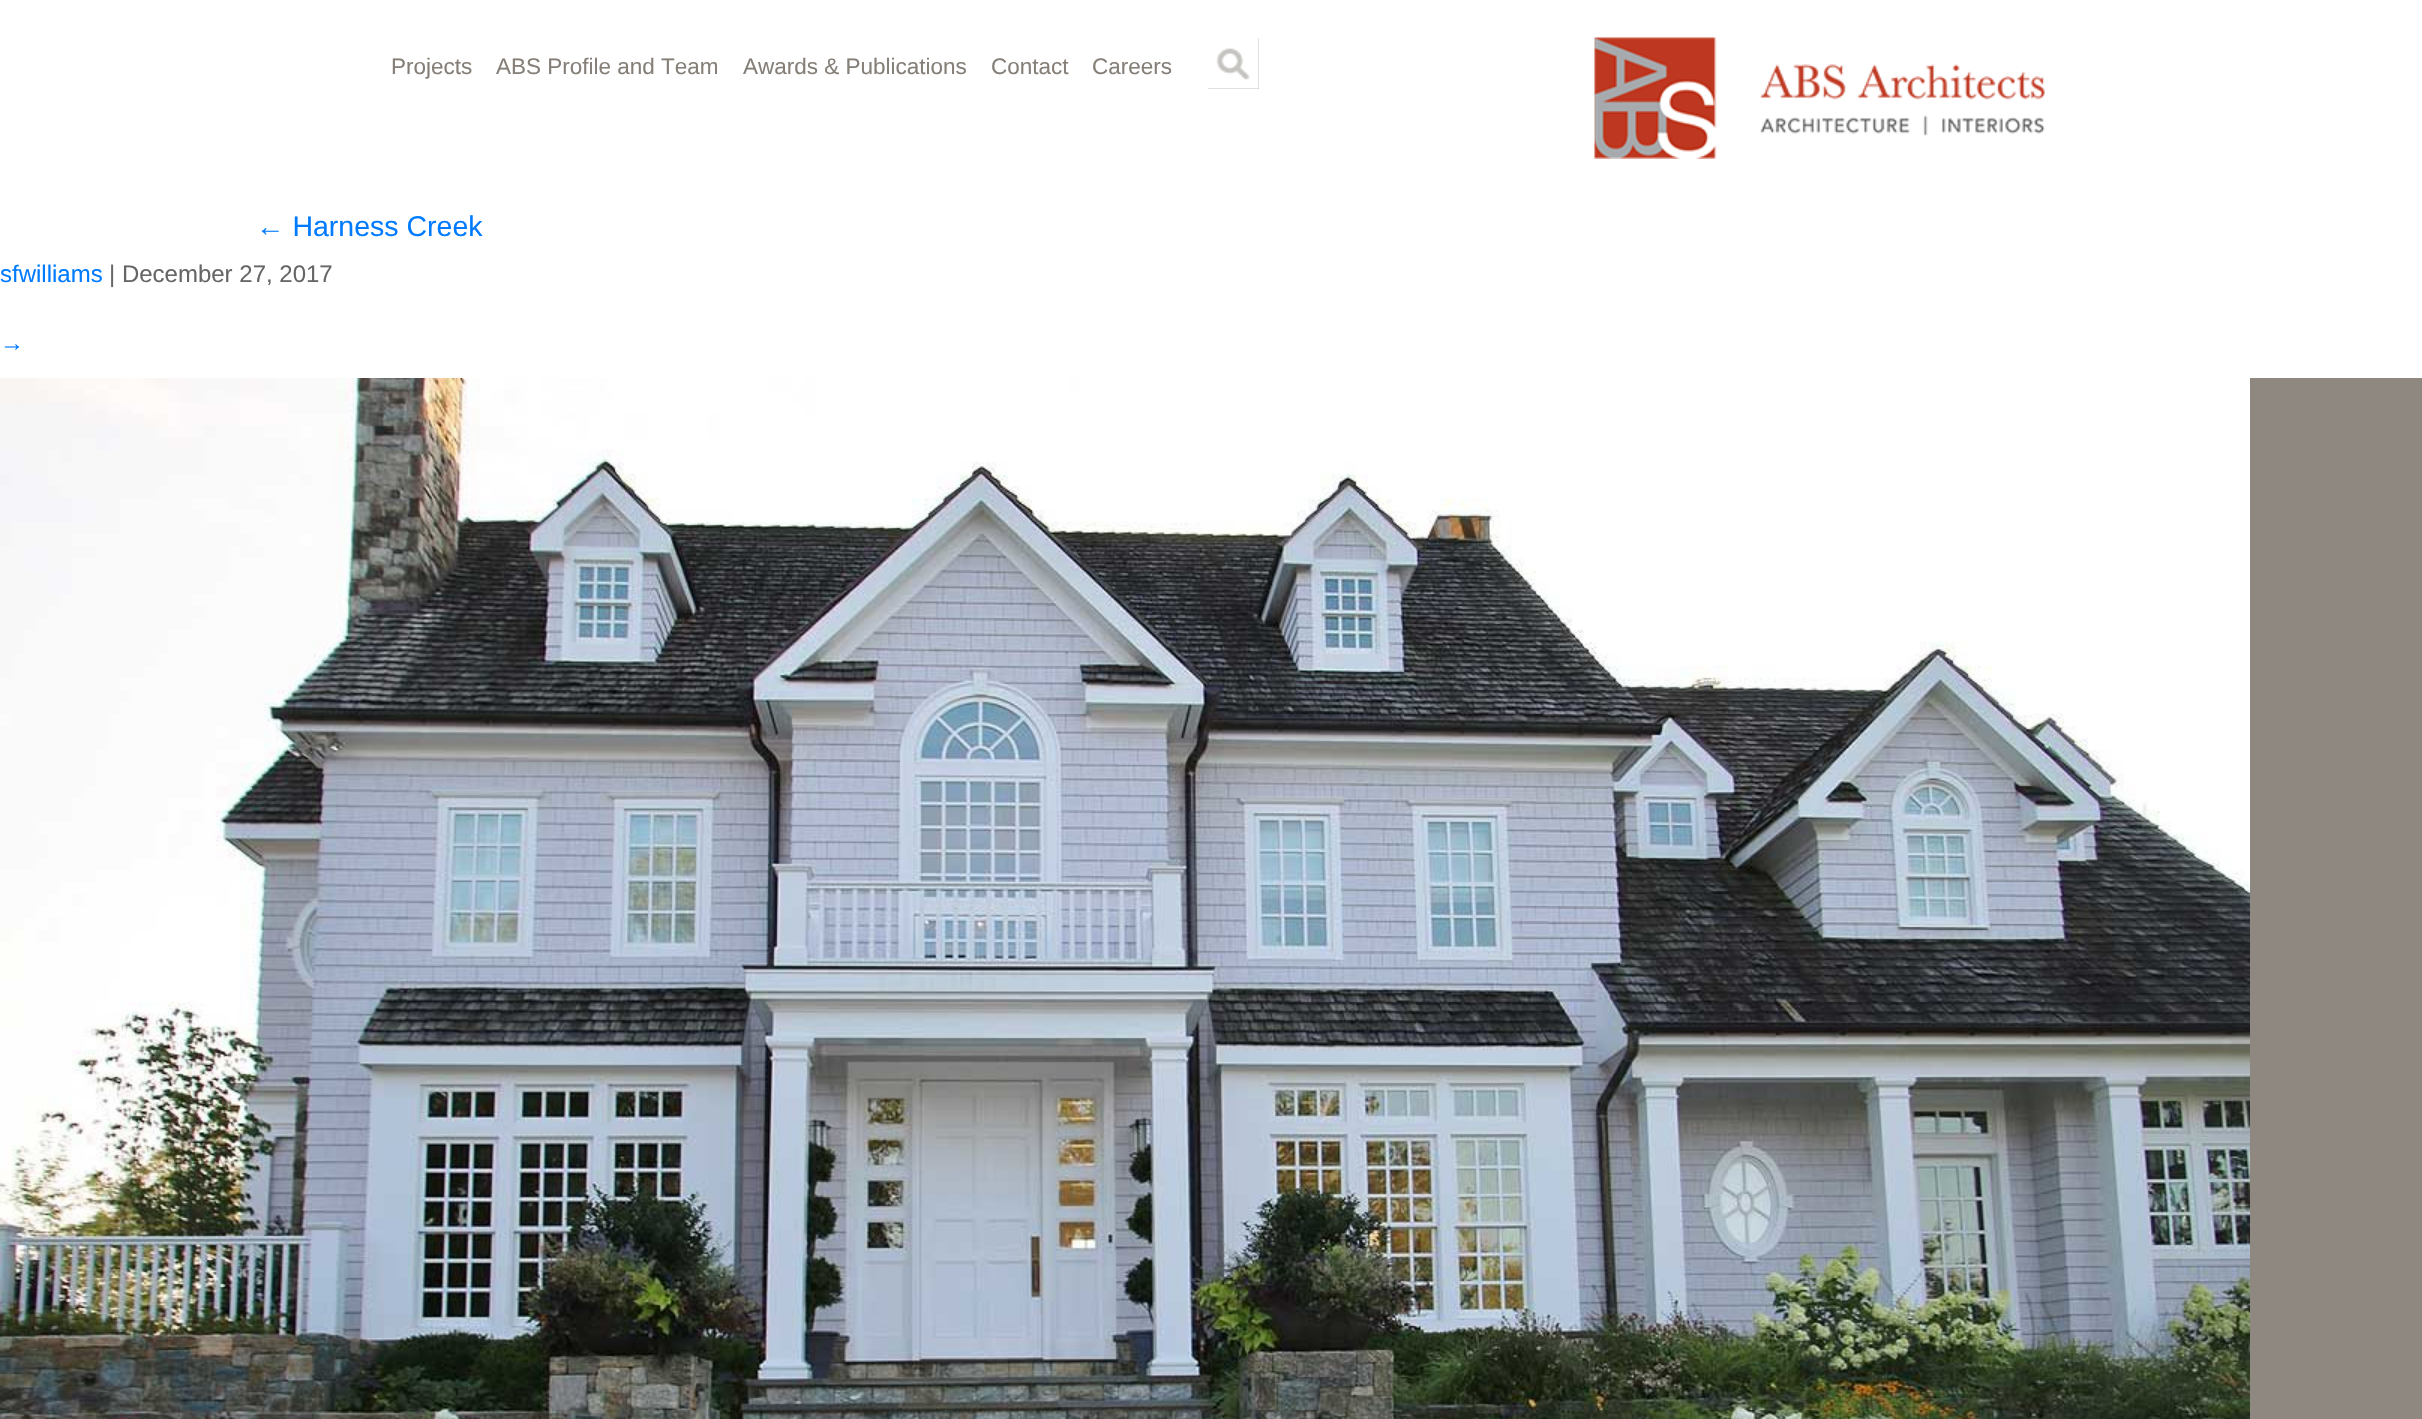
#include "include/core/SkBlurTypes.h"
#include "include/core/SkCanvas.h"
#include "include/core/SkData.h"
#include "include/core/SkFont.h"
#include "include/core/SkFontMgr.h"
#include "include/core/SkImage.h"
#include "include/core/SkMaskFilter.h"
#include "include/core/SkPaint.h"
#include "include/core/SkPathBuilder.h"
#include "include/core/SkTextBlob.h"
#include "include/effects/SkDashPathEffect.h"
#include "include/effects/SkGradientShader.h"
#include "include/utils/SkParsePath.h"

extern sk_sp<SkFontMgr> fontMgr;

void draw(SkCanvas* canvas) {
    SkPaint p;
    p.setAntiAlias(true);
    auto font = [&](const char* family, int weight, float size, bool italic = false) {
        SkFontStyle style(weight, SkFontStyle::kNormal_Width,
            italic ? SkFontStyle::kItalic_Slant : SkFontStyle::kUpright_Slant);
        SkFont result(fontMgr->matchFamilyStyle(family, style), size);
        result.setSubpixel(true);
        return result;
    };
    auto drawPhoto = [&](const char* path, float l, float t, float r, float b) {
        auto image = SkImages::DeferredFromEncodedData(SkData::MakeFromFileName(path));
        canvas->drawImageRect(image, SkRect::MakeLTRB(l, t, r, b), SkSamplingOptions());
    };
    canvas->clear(0xFF8F8881);
    p.setColor(0xFFFFFFFF);
    canvas->drawRect(SkRect::MakeLTRB(0, 0, 2422, 378), p);
    auto font1 = font("Liberation Sans", 400, 22.5f);
    p.setColor(0xFF857F78);
    {
        const struct { const char* s; float x, y; } items[] = {
            {"Projects", 391, 74},
            {"ABS Profile and Team", 496, 74},
            {"Awards & Publications", 743, 74},
            {"Contact", 991, 74},
            {"Careers", 1092, 74},
        };
        for (auto [s, x, y] : items) {
            canvas->drawString(s, x, y, font1, p);
        }
    }
    p.setColor(0xFFC5C3BF);
    canvas->drawRect(SkRect::MakeLTRB(1208, 38, 1259, 89), p);
    drawPhoto("media/1.png", 1208, 38, 1259, 89);
    drawPhoto("media/2.png", 1594, 37, 2045, 159);
    auto font2 = font("Liberation Sans", 400, 28.5f);
    p.setColor(0xFF007BFF);
    canvas->drawString("← Harness Creek", 256, 236, font2, p);
    auto font3 = font("Liberation Sans", 400, 24);
    canvas->drawString("sfwilliams", 0, 282, font3, p);
    p.setColor(0xFF666666);
    canvas->drawString("| December 27, 2017", 109, 282, font3, p);
    p.setColor(0xFF007BFF);
    canvas->drawString("→", 0, 351, font3, p);
    drawPhoto("media/3.png", 0, 378, 2250, 1419);
}
